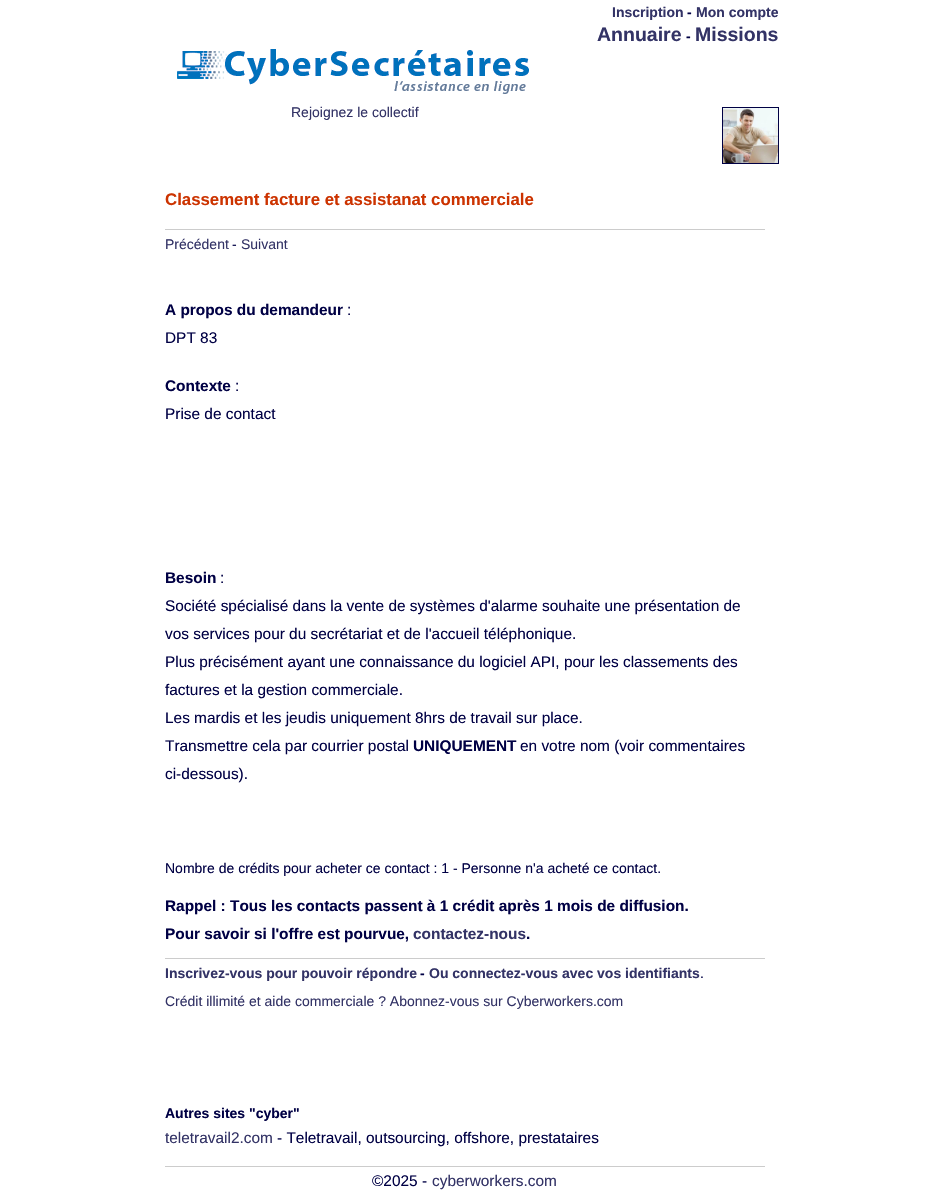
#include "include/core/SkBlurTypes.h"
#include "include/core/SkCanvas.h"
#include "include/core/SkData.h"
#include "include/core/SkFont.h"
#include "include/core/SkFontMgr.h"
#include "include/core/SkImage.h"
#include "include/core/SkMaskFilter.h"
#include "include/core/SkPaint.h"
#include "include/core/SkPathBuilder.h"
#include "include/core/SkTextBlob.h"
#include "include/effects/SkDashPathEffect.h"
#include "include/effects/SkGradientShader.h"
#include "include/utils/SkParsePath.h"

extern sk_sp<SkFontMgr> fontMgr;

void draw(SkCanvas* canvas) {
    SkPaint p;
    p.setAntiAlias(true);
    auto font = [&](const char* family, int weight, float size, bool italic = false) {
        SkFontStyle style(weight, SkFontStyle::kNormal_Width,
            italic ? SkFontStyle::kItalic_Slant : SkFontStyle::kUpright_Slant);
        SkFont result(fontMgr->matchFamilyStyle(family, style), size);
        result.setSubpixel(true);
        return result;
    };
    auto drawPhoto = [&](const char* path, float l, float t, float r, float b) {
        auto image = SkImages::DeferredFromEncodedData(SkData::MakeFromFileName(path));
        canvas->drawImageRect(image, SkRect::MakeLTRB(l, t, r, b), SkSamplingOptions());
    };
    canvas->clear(0xFFFFFFFF);
    auto font1 = font("Liberation Sans", 700, 14);
    p.setColor(0xFF333366);
    canvas->drawString("Inscription", 612, 17, font1, p);
    p.setColor(0xFF000044);
    canvas->drawString("-", 687, 17, font1, p);
    p.setColor(0xFF333366);
    canvas->drawString("Mon compte", 696, 17, font1, p);
    auto font2 = font("Liberation Sans", 700, 19.5f);
    canvas->drawString("Annuaire", 597, 41, font2, p);
    p.setColor(0xFF000044);
    canvas->drawString("-", 686, 41, font1, p);
    p.setColor(0xFF333366);
    canvas->drawString("Missions", 695, 41, font2, p);
    p.setStyle(SkPaint::kStroke_Style);
    p.setStrokeWidth(1);
    p.setColor(0xFF000044);
    canvas->drawRect(SkRect::MakeLTRB(722.5f, 107.5f, 778.5f, 163.5f), p);
    drawPhoto("media/1.png", 723, 108, 778, 163);
    drawPhoto("media/2.png", 177, 49, 529, 94);
    auto font3 = font("Liberation Sans", 400, 14);
    p.setStyle(SkPaint::kFill_Style);
    p.setColor(0xFF333366);
    canvas->drawString("Rejoignez le collectif", 291, 117, font3, p);
    auto font4 = font("Liberation Sans", 700, 16.8f);
    p.setColor(0xFFCC3300);
    canvas->drawString("Classement facture et assistanat commerciale", 165, 205, font4, p);
    p.setColor(0xFFCCCCCC);
    canvas->drawRect(SkRect::MakeLTRB(165, 229, 765, 230), p);
    p.setColor(0xFF333366);
    canvas->drawString("Précédent", 165, 249, font3, p);
    p.setColor(0xFF000044);
    canvas->drawString("-", 232, 249, font3, p);
    p.setColor(0xFF333366);
    canvas->drawString("Suivant", 241, 249, font3, p);
    auto font5 = font("Liberation Sans", 700, 15.4f);
    p.setColor(0xFF000044);
    canvas->drawString("A propos du demandeur", 165, 315, font5, p);
    auto font6 = font("Liberation Sans", 400, 15.4f);
    canvas->drawString(":", 347, 315, font6, p);
    canvas->drawString("DPT 83", 165, 343, font6, p);
    canvas->drawString("Contexte", 165, 391, font5, p);
    canvas->drawString(":", 235, 391, font6, p);
    canvas->drawString("Prise de contact", 165, 419, font6, p);
    canvas->drawString("Besoin", 165, 583, font5, p);
    {
        const struct { const char* s; float x, y; } items[] = {
            {":", 220, 583},
            {"Société spécialisé dans la vente de systèmes d'alarme souhaite une présentation de", 165, 611},
            {"vos services pour du secrétariat et de l'accueil téléphonique.", 165, 639},
            {"Plus précisément ayant une connaissance du logiciel API, pour les classements des", 165, 667},
            {"factures et la gestion commerciale.", 165, 695},
            {"Les mardis et les jeudis uniquement 8hrs de travail sur place.", 165, 723},
            {"Transmettre cela par courrier postal", 165, 751},
        };
        for (auto [s, x, y] : items) {
            canvas->drawString(s, x, y, font6, p);
        }
    }
    canvas->drawString("UNIQUEMENT", 413, 751, font5, p);
    canvas->drawString("en votre nom (voir commentaires", 520, 751, font6, p);
    canvas->drawString("ci-dessous).", 165, 779, font6, p);
    canvas->drawString("Nombre de crédits pour acheter ce contact : 1 - Personne n'a acheté ce contact.", 165, 873, font3, p);
    canvas->drawString("Rappel : Tous les contacts passent à 1 crédit après 1 mois de diffusion.", 165, 911, font5, p);
    canvas->drawString("Pour savoir si l'offre est pourvue,", 165, 939, font5, p);
    p.setColor(0xFF333366);
    canvas->drawString("contactez-nous", 413, 939, font5, p);
    p.setColor(0xFF000044);
    canvas->drawString(".", 526, 939, font5, p);
    p.setColor(0xFFCCCCCC);
    canvas->drawRect(SkRect::MakeLTRB(165, 958, 765, 959), p);
    p.setColor(0xFF333366);
    canvas->drawString("Inscrivez-vous pour pouvoir répondre", 165, 978, font1, p);
    p.setColor(0xFF000044);
    canvas->drawString("-", 420, 978, font1, p);
    p.setColor(0xFF333366);
    canvas->drawString("Ou connectez-vous avec vos identifiants", 429, 978, font1, p);
    p.setColor(0xFF000044);
    canvas->drawString(".", 700, 978, font3, p);
    p.setColor(0xFF333366);
    canvas->drawString("Crédit illimité et aide commerciale ? Abonnez-vous sur Cyberworkers.com", 165, 1006, font3, p);
    p.setColor(0xFF000044);
    canvas->drawString("Autres sites \"cyber\"", 165, 1118, font1, p);
    p.setColor(0xFF333366);
    canvas->drawString("teletravail2.com", 165, 1143, font6, p);
    p.setColor(0xFF000044);
    canvas->drawString("- Teletravail, outsourcing, offshore, prestataires", 277, 1143, font6, p);
    p.setColor(0xFFCCCCCC);
    canvas->drawRect(SkRect::MakeLTRB(165, 1166, 765, 1167), p);
    p.setColor(0xFF000044);
    canvas->drawString("©2025 -", 372, 1186, font6, p);
    p.setColor(0xFF333366);
    canvas->drawString("cyberworkers.com", 432, 1186, font6, p);
}
